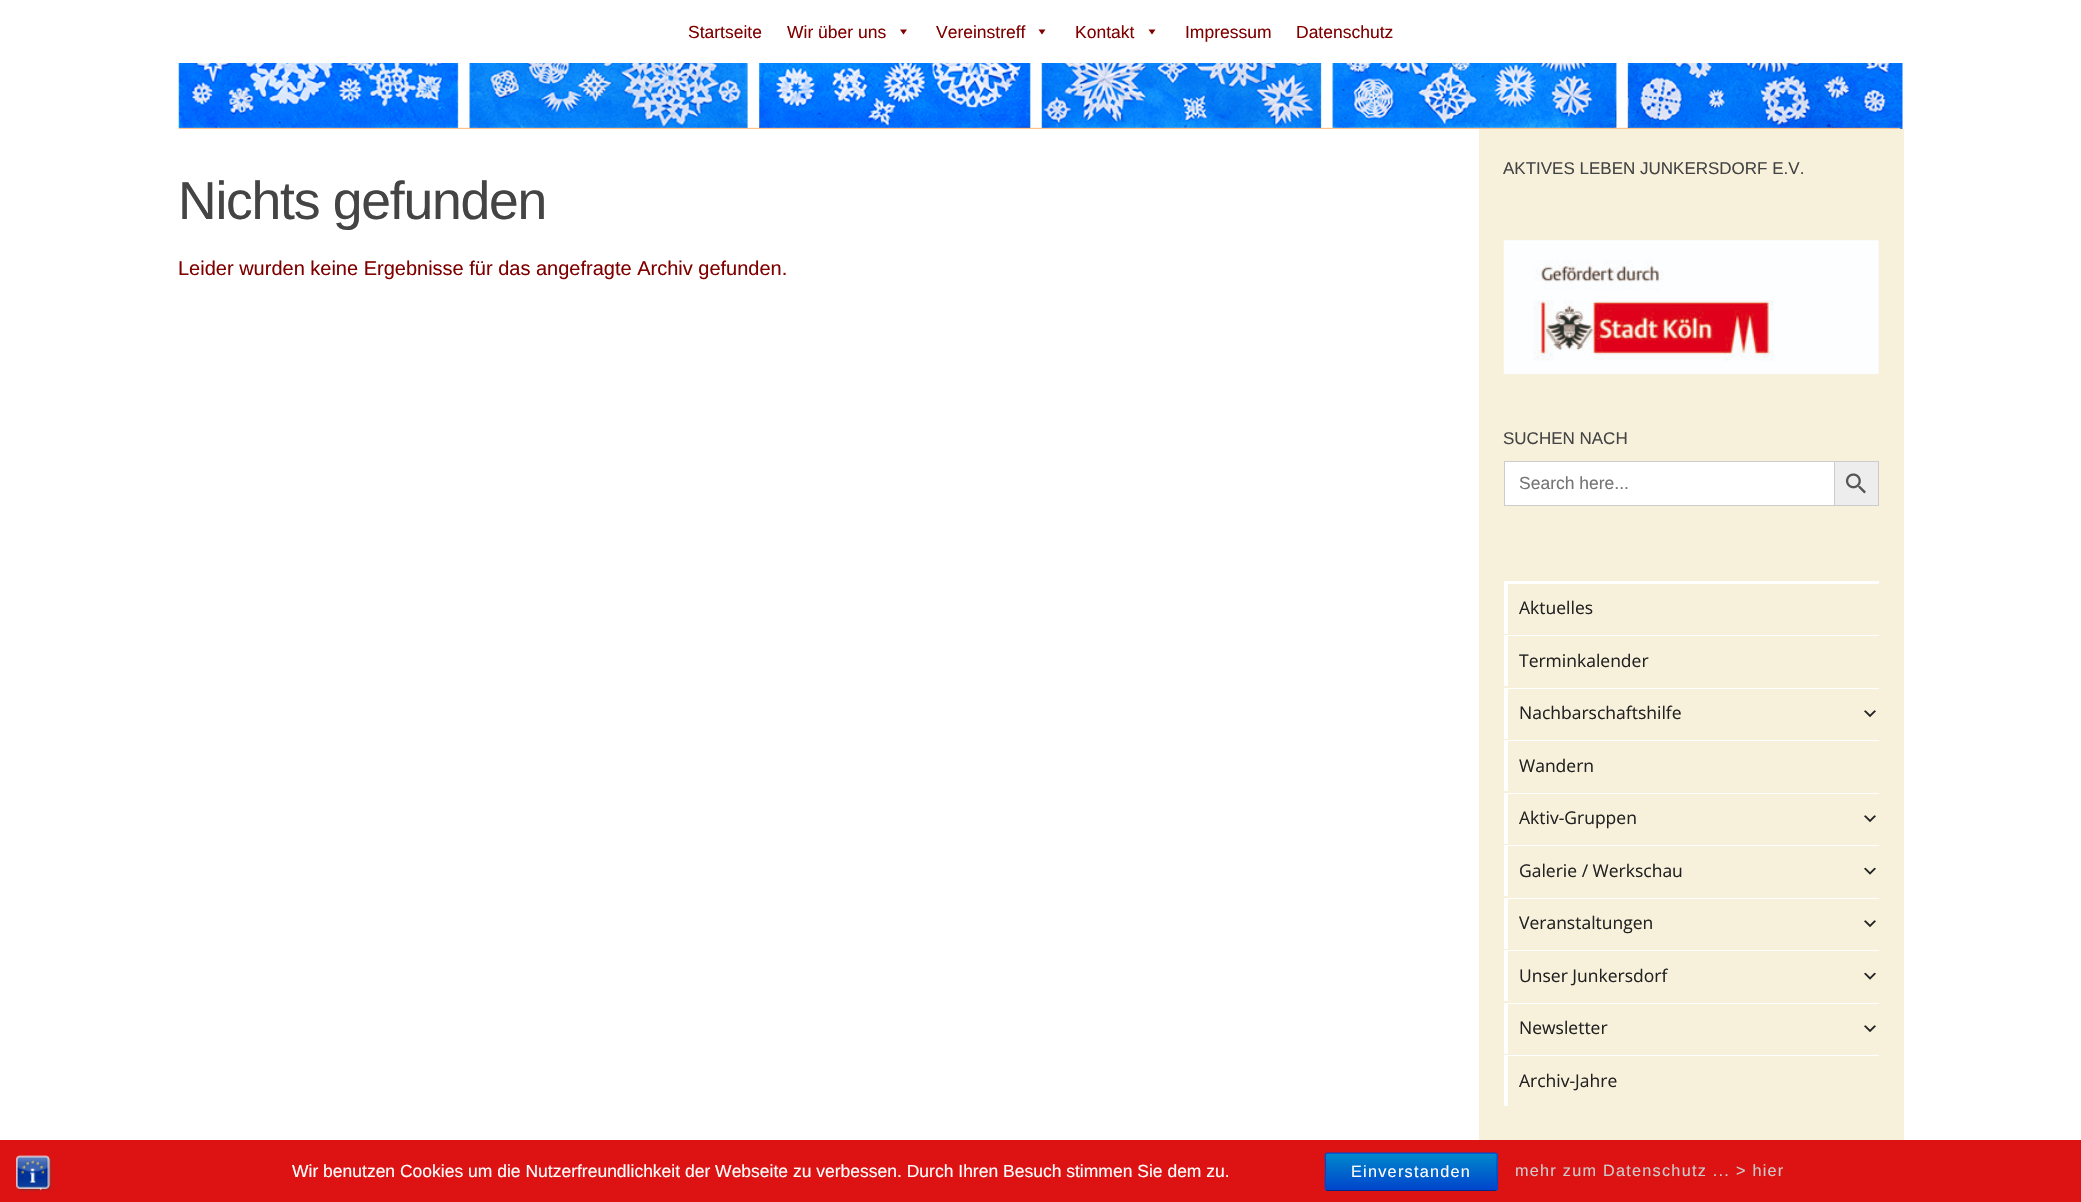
#include "include/core/SkBlurTypes.h"
#include "include/core/SkCanvas.h"
#include "include/core/SkData.h"
#include "include/core/SkFont.h"
#include "include/core/SkFontMgr.h"
#include "include/core/SkImage.h"
#include "include/core/SkMaskFilter.h"
#include "include/core/SkPaint.h"
#include "include/core/SkPathBuilder.h"
#include "include/core/SkTextBlob.h"
#include "include/effects/SkDashPathEffect.h"
#include "include/effects/SkGradientShader.h"
#include "include/utils/SkParsePath.h"

extern sk_sp<SkFontMgr> fontMgr;

void draw(SkCanvas* canvas) {
    SkPaint p;
    p.setAntiAlias(true);
    auto font = [&](const char* family, int weight, float size, bool italic = false) {
        SkFontStyle style(weight, SkFontStyle::kNormal_Width,
            italic ? SkFontStyle::kItalic_Slant : SkFontStyle::kUpright_Slant);
        SkFont result(fontMgr->matchFamilyStyle(family, style), size);
        result.setSubpixel(true);
        return result;
    };
    auto drawTracked = [&](const char* s, float x, float y, const SkFont& font, const SkPaint& ink, float letter, float word) {
        std::vector<SkGlyphID> glyphs(font.countText(s, strlen(s), SkTextEncoding::kUTF8));
        std::vector<float> xs(glyphs.size());
        font.textToGlyphs(s, strlen(s), SkTextEncoding::kUTF8, glyphs);
        font.getXPos(glyphs, xs, x);
        float extra = 0;
        for (size_t i = 0; i < glyphs.size(); i++) {
            xs[i] += extra;
            extra += letter + word * (glyphs[i] == font.unicharToGlyph(' '));
        }
        canvas->drawTextBlob(SkTextBlob::MakeFromPosHGlyphs(glyphs, xs, y, font), 0, 0, ink);
    };
    auto drawPhoto = [&](const char* path, float l, float t, float r, float b) {
        auto image = SkImages::DeferredFromEncodedData(SkData::MakeFromFileName(path));
        canvas->drawImageRect(image, SkRect::MakeLTRB(l, t, r, b), SkSamplingOptions());
    };
    canvas->clear(0xFFFFFFFF);
    auto font1 = font("Liberation Sans", 400, 17.5f);
    p.setColor(0xFF800000);
    canvas->drawString("Startseite", 688, 38, font1, p);
    canvas->drawString("Wir über uns", 787, 38, font1, p);
    canvas->drawPath(SkPathBuilder().moveTo(907, 29.5f).lineTo(903.5f, 34.5f).lineTo(900, 29.5f).close().detach(), p);
    canvas->drawString("Vereinstreff", 936, 38, font1, p);
    canvas->drawPath(SkPathBuilder().moveTo(1045.5f, 29.5f).lineTo(1042, 34.5f).lineTo(1038.5f, 29.5f).close().detach(), p);
    canvas->drawString("Kontakt", 1075, 38, font1, p);
    canvas->drawPath(SkPathBuilder().moveTo(1155.5f, 29.5f).lineTo(1152, 34.5f).lineTo(1148.5f, 29.5f).close().detach(), p);
    canvas->drawString("Impressum", 1185, 38, font1, p);
    canvas->drawString("Datenschutz", 1296, 38, font1, p);
    drawPhoto("media/1.png", 178, 63, 1903, 129);
    p.setColor(0xFFF7F1DC);
    canvas->drawRect(SkRect::MakeLTRB(1479, 129, 1904, 1140), p);
    auto font2 = font("Liberation Sans", 400, 53.5f);
    p.setColor(0xFF444444);
    drawTracked("Nichts gefunden", 178, 219, font2, p, -1.25f, 0);
    auto font3 = font("Liberation Sans", 400, 20);
    p.setColor(0xFF800000);
    canvas->drawString("Leider wurden keine Ergebnisse für das angefragte Archiv gefunden.", 178, 275, font3, p);
    auto font4 = font("Liberation Sans", 400, 17);
    p.setColor(0xFF444444);
    canvas->drawString("AKTIVES LEBEN JUNKERSDORF E.V.", 1503, 174, font4, p);
    drawPhoto("media/2.png", 1503, 240, 1879, 375);
    canvas->drawString("SUCHEN NACH", 1503, 444, font4, p);
    {
        const struct { float l, t, r, b; SkColor color; } items[] = {
            {1505, 462, 1834, 505, 0xFFFFFFFF},
            {1504, 461, 1834, 462, 0xFFCCCCCC},
            {1504, 505, 1834, 506, 0xFFCCCCCC},
            {1504, 461, 1505, 506, 0xFFCCCCCC},
        };
        for (auto [l, t, r, b, color] : items) {
            p.setColor(color);
            canvas->drawRect(SkRect::MakeLTRB(l, t, r, b), p);
        }
    }
    p.setColor(0xFF757575);
    canvas->drawString("Search here...", 1519, 489, font1, p);
    p.setColor(0xFFEDEDED);
    canvas->drawRect(SkRect::MakeLTRB(1834.5f, 461.5f, 1878.5f, 505.5f), p);
    p.setStyle(SkPaint::kStroke_Style);
    p.setStrokeWidth(1);
    p.setColor(0xFFCCCCCC);
    canvas->drawRect(SkRect::MakeLTRB(1834.5f, 461.5f, 1878.5f, 505.5f), p);
    drawPhoto("media/3.png", 1845, 473, 1866, 494);
    p.setStyle(SkPaint::kFill_Style);
    p.setColor(0xFFFFFFFF);
    canvas->drawRect(SkRect::MakeLTRB(1504, 581, 1879, 584), p);
    canvas->drawRect(SkRect::MakeLTRB(1504, 581, 1508, 634), p);
    auto font5 = font("Open Sans", 400, 17.5f);
    p.setColor(0xFF222222);
    canvas->drawString("Aktuelles", 1519, 614, font5, p);
    p.setColor(0xFFFFFFFF);
    canvas->drawRect(SkRect::MakeLTRB(1504, 635, 1879, 636), p);
    canvas->drawRect(SkRect::MakeLTRB(1504, 636, 1508, 686), p);
    p.setColor(0xFF222222);
    canvas->drawString("Terminkalender", 1519, 667, font5, p);
    p.setColor(0xFFFFFFFF);
    canvas->drawRect(SkRect::MakeLTRB(1504, 688, 1879, 689), p);
    canvas->drawRect(SkRect::MakeLTRB(1504, 689, 1508, 739), p);
    p.setColor(0xFF222222);
    canvas->drawString("Nachbarschaftshilfe", 1519, 719, font5, p);
    drawPhoto("media/4.png", 1864, 710, 1876, 718);
    p.setColor(0xFFFFFFFF);
    canvas->drawRect(SkRect::MakeLTRB(1504, 740, 1879, 741), p);
    canvas->drawRect(SkRect::MakeLTRB(1504, 741, 1508, 791), p);
    p.setColor(0xFF222222);
    canvas->drawString("Wandern", 1519, 772, font5, p);
    p.setColor(0xFFFFFFFF);
    canvas->drawRect(SkRect::MakeLTRB(1504, 793, 1879, 794), p);
    canvas->drawRect(SkRect::MakeLTRB(1504, 794, 1508, 844), p);
    p.setColor(0xFF222222);
    canvas->drawString("Aktiv-Gruppen", 1519, 824, font5, p);
    drawPhoto("media/4.png", 1864, 815, 1876, 823);
    p.setColor(0xFFFFFFFF);
    canvas->drawRect(SkRect::MakeLTRB(1504, 845, 1879, 846), p);
    canvas->drawRect(SkRect::MakeLTRB(1504, 846, 1508, 896), p);
    p.setColor(0xFF222222);
    canvas->drawString("Galerie / Werkschau", 1519, 877, font5, p);
    drawPhoto("media/5.png", 1864, 867, 1876, 875);
    p.setColor(0xFFFFFFFF);
    canvas->drawRect(SkRect::MakeLTRB(1504, 898, 1879, 899), p);
    canvas->drawRect(SkRect::MakeLTRB(1504, 899, 1508, 949), p);
    p.setColor(0xFF222222);
    canvas->drawString("Veranstaltungen", 1519, 929, font5, p);
    drawPhoto("media/4.png", 1864, 920, 1876, 928);
    p.setColor(0xFFFFFFFF);
    canvas->drawRect(SkRect::MakeLTRB(1504, 950, 1879, 951), p);
    canvas->drawRect(SkRect::MakeLTRB(1504, 951, 1508, 1001), p);
    p.setColor(0xFF222222);
    canvas->drawString("Unser Junkersdorf", 1519, 982, font5, p);
    drawPhoto("media/5.png", 1864, 972, 1876, 980);
    p.setColor(0xFFFFFFFF);
    canvas->drawRect(SkRect::MakeLTRB(1504, 1003, 1879, 1004), p);
    canvas->drawRect(SkRect::MakeLTRB(1504, 1004, 1508, 1054), p);
    p.setColor(0xFF222222);
    canvas->drawString("Newsletter", 1519, 1034, font5, p);
    drawPhoto("media/4.png", 1864, 1025, 1876, 1033);
    p.setColor(0xFFFFFFFF);
    canvas->drawRect(SkRect::MakeLTRB(1504, 1055, 1879, 1056), p);
    canvas->drawRect(SkRect::MakeLTRB(1504, 1056, 1508, 1106), p);
    p.setColor(0xFF222222);
    canvas->drawString("Archiv-Jahre", 1519, 1087, font5, p);
    p.setColor(0xFFDD1313);
    canvas->drawRect(SkRect::MakeLTRB(0, 1140, 2081, 1202), p);
    drawPhoto("media/6.png", 16, 1155, 53, 1192);
    p.setColor(0xFFFFFFFF);
    canvas->drawString("Wir benutzen Cookies um die Nutzerfreundlichkeit der Webseite zu verbessen. Durch Ihren Besuch stimmen Sie dem zu.", 292, 1177, font1, p);
    p.setColor(0xFF006DCC);
    canvas->drawRoundRect(SkRect::MakeLTRB(1325, 1153, 1498, 1191), 2.5f, 2.5f, p);
    canvas->save();
    canvas->clipPath(SkPathBuilder().moveTo(1327.5f, 1153).lineTo(1495.5f, 1153).cubicTo(1497, 1153, 1498, 1154, 1498, 1155.5f).lineTo(1498, 1188.5f).cubicTo(1498, 1190, 1497, 1191, 1495.5f, 1191).lineTo(1327.5f, 1191).cubicTo(1326, 1191, 1325, 1190, 1325, 1188.5f).lineTo(1325, 1155.5f).cubicTo(1325, 1154, 1326, 1153, 1327.5f, 1153).close().detach(), true);
    {
        const SkColor colors[] = {0xFF0088CC, 0xFF0044CC};
        const float stops[] = {0, 1};
        const SkPoint ends[] = {{1411, 1154}, {1411, 1190}};
        p.setShader(SkGradientShader::MakeLinear(ends, colors, stops, 2, SkTileMode::kClamp));
        p.setAlpha(255);
    }
    canvas->drawRect(SkRect::MakeLTRB(1325, 1154, 1498, 1190), p);
    canvas->restore();
    p.setStyle(SkPaint::kStroke_Style);
    p.setStrokeWidth(1.2f);
    p.setShader(nullptr);
    p.setColor(0xFF002A80);
    canvas->drawPath(SkPathBuilder().moveTo(1496.5f, 1190).lineTo(1495, 1190.5f).lineTo(1327.5f, 1190.5f).lineTo(1326, 1190).detach(), p);
    p.setColor(0xFF0044CC);
    canvas->drawPath(SkPathBuilder().moveTo(1326, 1190).cubicTo(1324.5f, 1188.5f, 1325.5f, 1174.5f, 1325.5f, 1172).lineTo(1325.5f, 1160.5f).cubicTo(1325.5f, 1160, 1324, 1153, 1327.5f, 1153).lineTo(1495, 1153).cubicTo(1498.5f, 1153, 1497, 1160, 1497, 1160.5f).lineTo(1497, 1172).cubicTo(1497, 1174.5f, 1498, 1188.5f, 1496.5f, 1190).detach(), p);
    auto font6 = font("Liberation Sans", 400, 16.25f);
    p.setStyle(SkPaint::kFill_Style);
    p.setColor(0xFFFFFFFF);
    drawTracked("Einverstanden", 1351, 1177, font6, p, 1.25f, 0);
    p.setColor(0xFFCCCCCC);
    drawTracked("mehr zum Datenschutz ... > hier", 1515, 1176, font6, p, 1.25f, 0);
}
